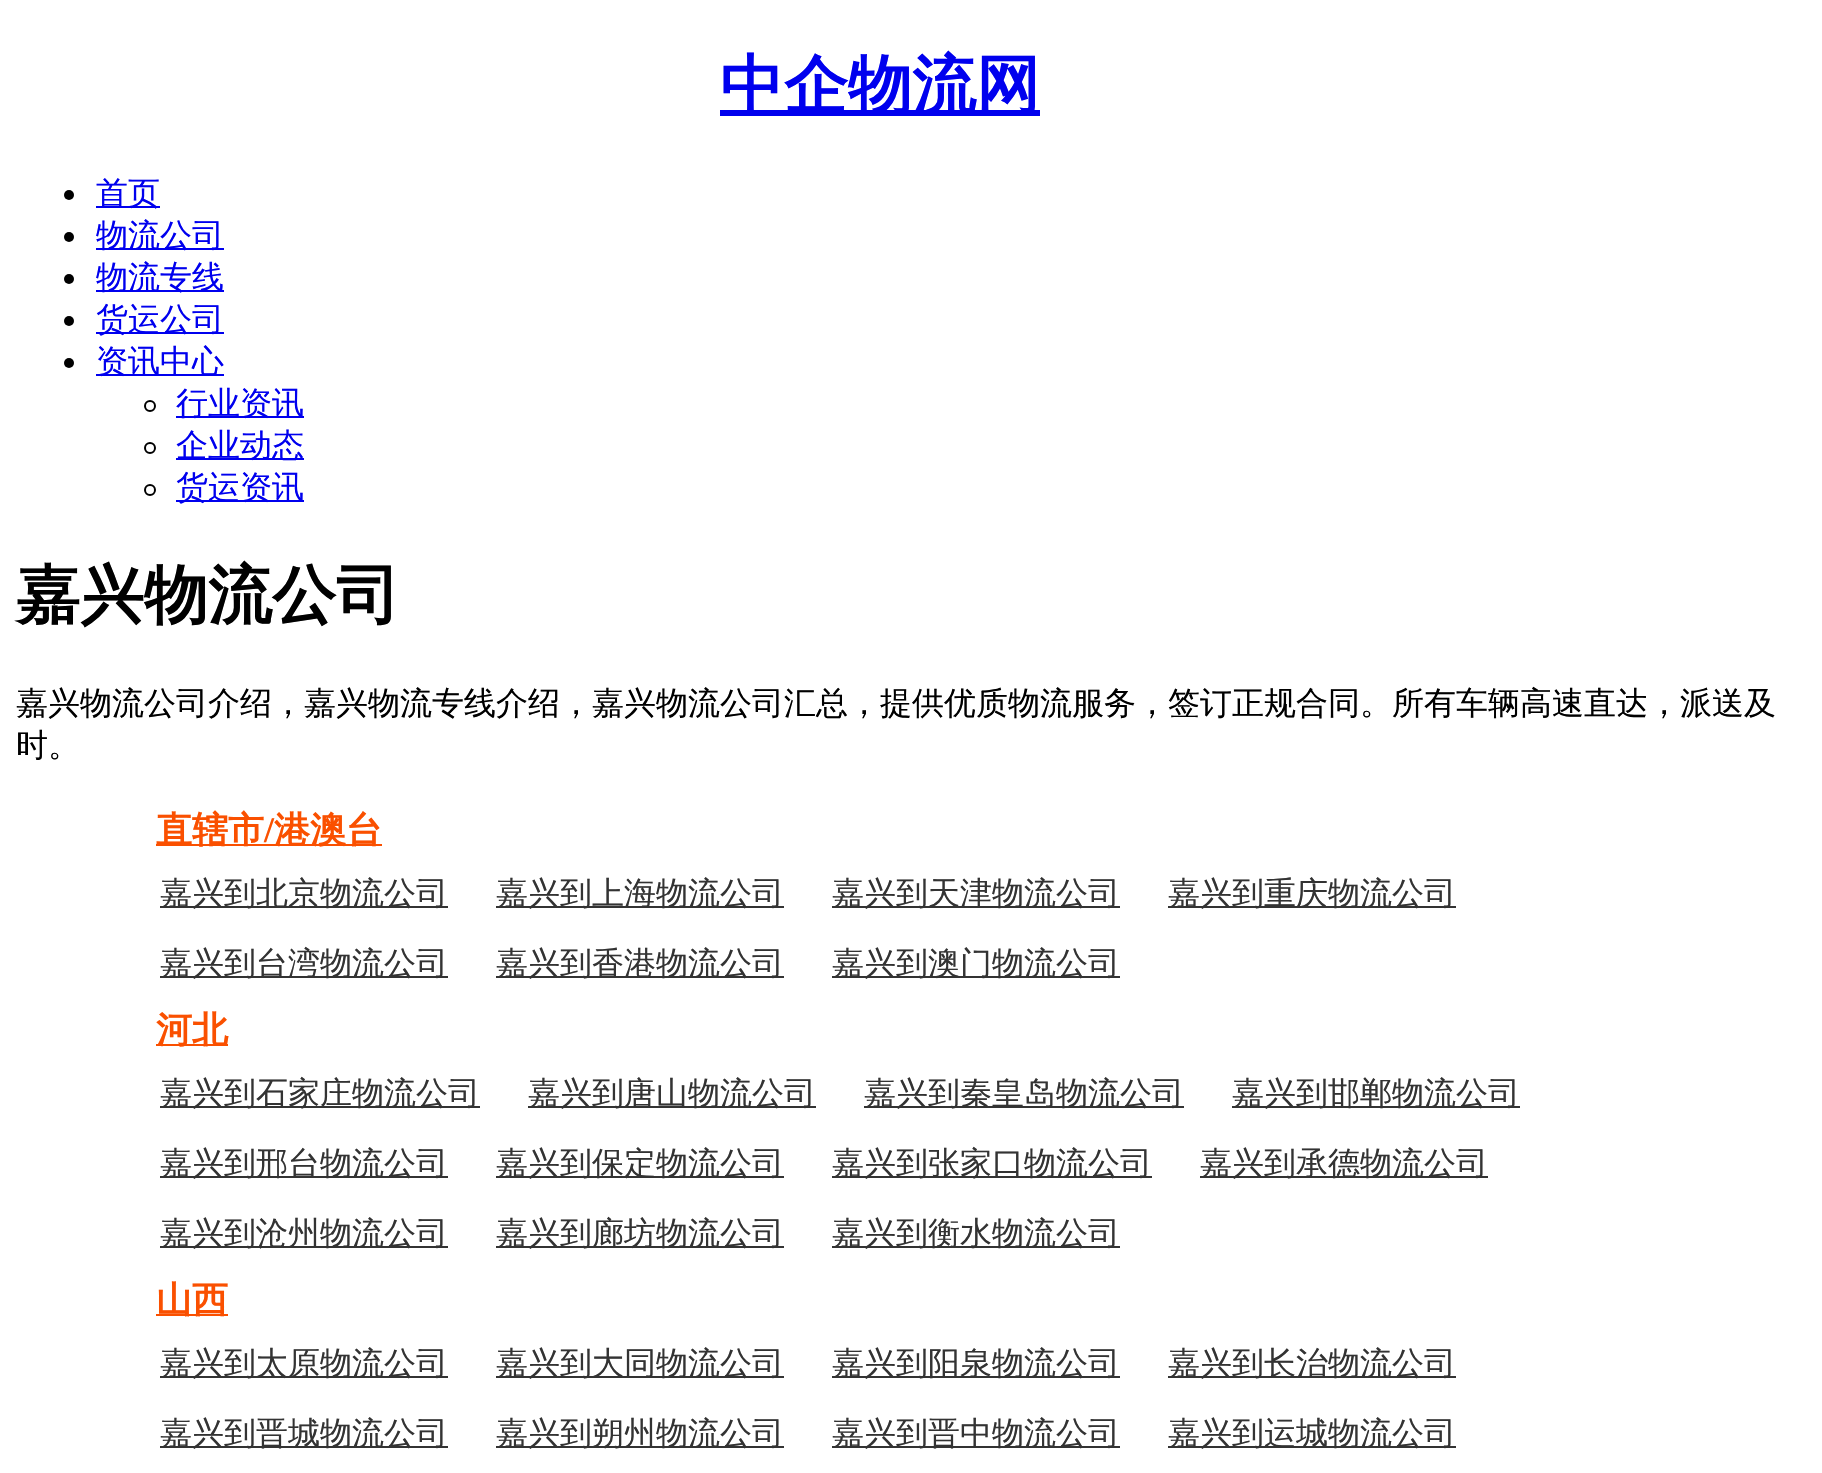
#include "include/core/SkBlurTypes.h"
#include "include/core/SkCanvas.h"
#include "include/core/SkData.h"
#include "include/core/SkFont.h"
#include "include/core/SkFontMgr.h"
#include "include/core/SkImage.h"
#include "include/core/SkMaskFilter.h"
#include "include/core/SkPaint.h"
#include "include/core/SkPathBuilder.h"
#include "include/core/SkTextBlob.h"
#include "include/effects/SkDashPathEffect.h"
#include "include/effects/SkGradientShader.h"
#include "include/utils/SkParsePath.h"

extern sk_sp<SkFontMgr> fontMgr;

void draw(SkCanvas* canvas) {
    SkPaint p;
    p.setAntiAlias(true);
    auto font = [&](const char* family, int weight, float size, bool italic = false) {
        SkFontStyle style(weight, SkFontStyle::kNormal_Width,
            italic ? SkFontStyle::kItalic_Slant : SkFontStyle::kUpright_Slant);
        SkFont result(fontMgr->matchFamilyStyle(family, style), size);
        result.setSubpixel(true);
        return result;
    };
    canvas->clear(0xFFFFFFFF);
    p.setColor(0xFF0000EE);
    canvas->drawRect(SkRect::MakeLTRB(720, 110, 1040, 116), p);
    auto font1 = font("WenQuanYi Zen Hei", 700, 64);
    canvas->drawString("中企物流网", 720, 107, font1, p);
    p.setColor(0xFF000000);
    canvas->drawCircle(69, 195, 5, p);
    p.setColor(0xFF0000EE);
    canvas->drawRect(SkRect::MakeLTRB(96, 206, 160, 208), p);
    auto font2 = font("WenQuanYi Zen Hei", 500, 32);
    canvas->drawString("首页", 96, 204, font2, p);
    p.setColor(0xFF000000);
    canvas->drawCircle(69, 237, 5, p);
    p.setColor(0xFF0000EE);
    canvas->drawRect(SkRect::MakeLTRB(96, 248, 224, 250), p);
    canvas->drawString("物流公司", 96, 246, font2, p);
    p.setColor(0xFF000000);
    canvas->drawCircle(69, 279, 5, p);
    p.setColor(0xFF0000EE);
    canvas->drawRect(SkRect::MakeLTRB(96, 290, 224, 292), p);
    canvas->drawString("物流专线", 96, 288, font2, p);
    p.setColor(0xFF000000);
    canvas->drawCircle(69, 321, 5, p);
    p.setColor(0xFF0000EE);
    canvas->drawRect(SkRect::MakeLTRB(96, 332, 224, 334), p);
    canvas->drawString("货运公司", 96, 330, font2, p);
    p.setColor(0xFF000000);
    canvas->drawCircle(69, 363, 5, p);
    p.setColor(0xFF0000EE);
    canvas->drawRect(SkRect::MakeLTRB(96, 374, 224, 376), p);
    canvas->drawString("资讯中心", 96, 372, font2, p);
    p.setStyle(SkPaint::kStroke_Style);
    p.setStrokeWidth(2);
    p.setColor(0xFF000000);
    canvas->drawCircle(150, 406, 5, p);
    p.setStyle(SkPaint::kFill_Style);
    p.setColor(0xFF0000EE);
    canvas->drawRect(SkRect::MakeLTRB(176, 416, 304, 418), p);
    canvas->drawString("行业资讯", 176, 414, font2, p);
    p.setStyle(SkPaint::kStroke_Style);
    p.setColor(0xFF000000);
    canvas->drawCircle(150, 448, 5, p);
    p.setStyle(SkPaint::kFill_Style);
    p.setColor(0xFF0000EE);
    canvas->drawRect(SkRect::MakeLTRB(176, 458, 304, 460), p);
    canvas->drawString("企业动态", 176, 456, font2, p);
    p.setStyle(SkPaint::kStroke_Style);
    p.setColor(0xFF000000);
    canvas->drawCircle(150, 490, 5, p);
    p.setStyle(SkPaint::kFill_Style);
    p.setColor(0xFF0000EE);
    canvas->drawRect(SkRect::MakeLTRB(176, 500, 304, 502), p);
    canvas->drawString("货运资讯", 176, 498, font2, p);
    p.setColor(0xFF000000);
    canvas->drawString("嘉兴物流公司", 16, 617, font1, p);
    canvas->drawString("嘉兴物流公司介绍，嘉兴物流专线介绍，嘉兴物流公司汇总，提供优质物流服务，签订正规合同。所有车辆高速直达，派送及", 16, 714, font2, p);
    canvas->drawString("时。", 16, 756, font2, p);
    p.setColor(0xFFFA5000);
    canvas->drawRect(SkRect::MakeLTRB(156, 844, 382, 846), p);
    auto font3 = font("WenQuanYi Zen Hei", 700, 36);
    canvas->drawString("直辖市", 156, 842, font3, p);
    auto font4 = font("Liberation Serif", 700, 36);
    canvas->drawString("/", 264, 842, font4, p);
    canvas->drawString("港澳台", 274, 842, font3, p);
    p.setColor(0xFF333333);
    canvas->drawRect(SkRect::MakeLTRB(160, 906, 448, 908), p);
    canvas->drawString("嘉兴到北京物流公司", 160, 904, font2, p);
    canvas->drawRect(SkRect::MakeLTRB(496, 906, 784, 908), p);
    canvas->drawString("嘉兴到上海物流公司", 496, 904, font2, p);
    canvas->drawRect(SkRect::MakeLTRB(832, 906, 1120, 908), p);
    canvas->drawString("嘉兴到天津物流公司", 832, 904, font2, p);
    canvas->drawRect(SkRect::MakeLTRB(1168, 906, 1456, 908), p);
    canvas->drawString("嘉兴到重庆物流公司", 1168, 904, font2, p);
    canvas->drawRect(SkRect::MakeLTRB(160, 976, 448, 978), p);
    canvas->drawString("嘉兴到台湾物流公司", 160, 974, font2, p);
    canvas->drawRect(SkRect::MakeLTRB(496, 976, 784, 978), p);
    canvas->drawString("嘉兴到香港物流公司", 496, 974, font2, p);
    canvas->drawRect(SkRect::MakeLTRB(832, 976, 1120, 978), p);
    canvas->drawString("嘉兴到澳门物流公司", 832, 974, font2, p);
    p.setColor(0xFFFA5000);
    canvas->drawRect(SkRect::MakeLTRB(156, 1044, 228, 1046), p);
    canvas->drawString("河北", 156, 1042, font3, p);
    p.setColor(0xFF333333);
    canvas->drawRect(SkRect::MakeLTRB(160, 1106, 480, 1108), p);
    canvas->drawString("嘉兴到石家庄物流公司", 160, 1104, font2, p);
    canvas->drawRect(SkRect::MakeLTRB(528, 1106, 816, 1108), p);
    canvas->drawString("嘉兴到唐山物流公司", 528, 1104, font2, p);
    canvas->drawRect(SkRect::MakeLTRB(864, 1106, 1184, 1108), p);
    canvas->drawString("嘉兴到秦皇岛物流公司", 864, 1104, font2, p);
    canvas->drawRect(SkRect::MakeLTRB(1232, 1106, 1520, 1108), p);
    canvas->drawString("嘉兴到邯郸物流公司", 1232, 1104, font2, p);
    canvas->drawRect(SkRect::MakeLTRB(160, 1176, 448, 1178), p);
    canvas->drawString("嘉兴到邢台物流公司", 160, 1174, font2, p);
    canvas->drawRect(SkRect::MakeLTRB(496, 1176, 784, 1178), p);
    canvas->drawString("嘉兴到保定物流公司", 496, 1174, font2, p);
    canvas->drawRect(SkRect::MakeLTRB(832, 1176, 1152, 1178), p);
    canvas->drawString("嘉兴到张家口物流公司", 832, 1174, font2, p);
    canvas->drawRect(SkRect::MakeLTRB(1200, 1176, 1488, 1178), p);
    canvas->drawString("嘉兴到承德物流公司", 1200, 1174, font2, p);
    canvas->drawRect(SkRect::MakeLTRB(160, 1246, 448, 1248), p);
    canvas->drawString("嘉兴到沧州物流公司", 160, 1244, font2, p);
    canvas->drawRect(SkRect::MakeLTRB(496, 1246, 784, 1248), p);
    canvas->drawString("嘉兴到廊坊物流公司", 496, 1244, font2, p);
    canvas->drawRect(SkRect::MakeLTRB(832, 1246, 1120, 1248), p);
    canvas->drawString("嘉兴到衡水物流公司", 832, 1244, font2, p);
    p.setColor(0xFFFA5000);
    canvas->drawRect(SkRect::MakeLTRB(156, 1314, 228, 1316), p);
    canvas->drawString("山西", 156, 1312, font3, p);
    p.setColor(0xFF333333);
    canvas->drawRect(SkRect::MakeLTRB(160, 1376, 448, 1378), p);
    canvas->drawString("嘉兴到太原物流公司", 160, 1374, font2, p);
    canvas->drawRect(SkRect::MakeLTRB(496, 1376, 784, 1378), p);
    canvas->drawString("嘉兴到大同物流公司", 496, 1374, font2, p);
    canvas->drawRect(SkRect::MakeLTRB(832, 1376, 1120, 1378), p);
    canvas->drawString("嘉兴到阳泉物流公司", 832, 1374, font2, p);
    canvas->drawRect(SkRect::MakeLTRB(1168, 1376, 1456, 1378), p);
    canvas->drawString("嘉兴到长治物流公司", 1168, 1374, font2, p);
    canvas->drawRect(SkRect::MakeLTRB(160, 1446, 448, 1448), p);
    canvas->drawString("嘉兴到晋城物流公司", 160, 1444, font2, p);
    canvas->drawRect(SkRect::MakeLTRB(496, 1446, 784, 1448), p);
    canvas->drawString("嘉兴到朔州物流公司", 496, 1444, font2, p);
    canvas->drawRect(SkRect::MakeLTRB(832, 1446, 1120, 1448), p);
    canvas->drawString("嘉兴到晋中物流公司", 832, 1444, font2, p);
    canvas->drawRect(SkRect::MakeLTRB(1168, 1446, 1456, 1448), p);
    canvas->drawString("嘉兴到运城物流公司", 1168, 1444, font2, p);
}
